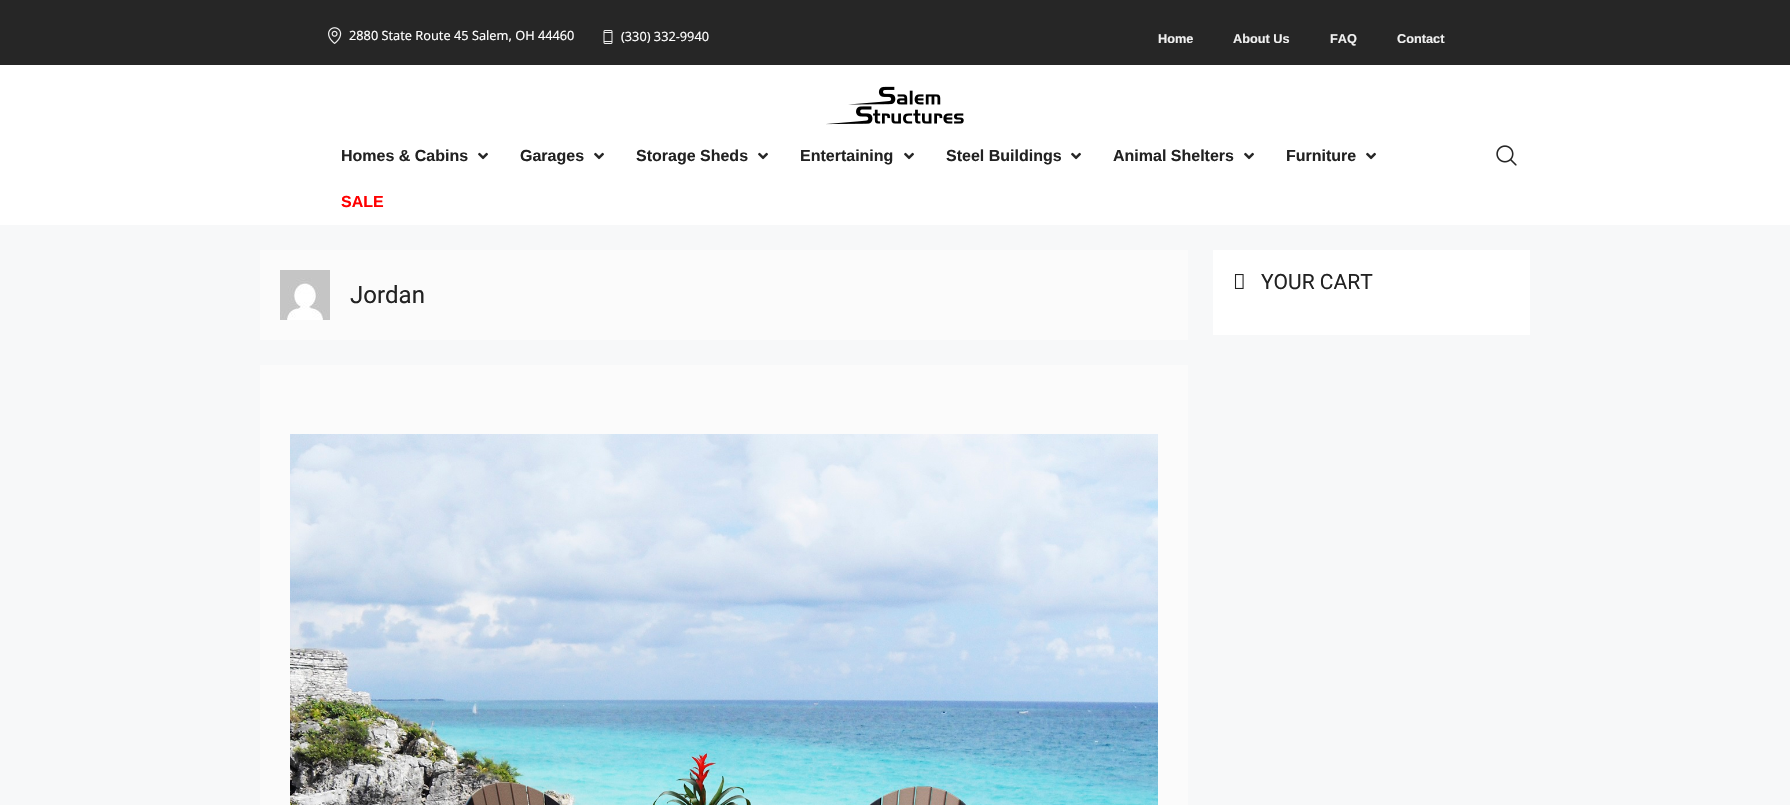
#include "include/core/SkBlurTypes.h"
#include "include/core/SkCanvas.h"
#include "include/core/SkData.h"
#include "include/core/SkFont.h"
#include "include/core/SkFontMgr.h"
#include "include/core/SkImage.h"
#include "include/core/SkMaskFilter.h"
#include "include/core/SkPaint.h"
#include "include/core/SkPathBuilder.h"
#include "include/core/SkTextBlob.h"
#include "include/effects/SkDashPathEffect.h"
#include "include/effects/SkGradientShader.h"
#include "include/utils/SkParsePath.h"

extern sk_sp<SkFontMgr> fontMgr;

void draw(SkCanvas* canvas) {
    SkPaint p;
    p.setAntiAlias(true);
    auto font = [&](const char* family, int weight, float size, bool italic = false) {
        SkFontStyle style(weight, SkFontStyle::kNormal_Width,
            italic ? SkFontStyle::kItalic_Slant : SkFontStyle::kUpright_Slant);
        SkFont result(fontMgr->matchFamilyStyle(family, style), size);
        result.setSubpixel(true);
        return result;
    };
    auto drawPhoto = [&](const char* path, float l, float t, float r, float b) {
        auto image = SkImages::DeferredFromEncodedData(SkData::MakeFromFileName(path));
        canvas->drawImageRect(image, SkRect::MakeLTRB(l, t, r, b), SkSamplingOptions());
    };
    canvas->clear(0xFFF7F8F9);
    p.setColor(0xFF262626);
    canvas->drawRect(SkRect::MakeLTRB(0, 0, 1790, 65), p);
    drawPhoto("media/1.png", 328, 27, 342, 44);
    auto font1 = font("Noto Sans", 400, 12.75f);
    p.setColor(0xFFFFFFFF);
    canvas->drawString("2880 State Route 45 Salem, OH 44460", 349, 40, font1, p);
    drawPhoto("media/2.png", 603, 30, 613, 44);
    canvas->drawString("(330) 332-9940", 621, 41, font1, p);
    auto font2 = font("Liberation Sans", 700, 12.75f);
    p.setColor(0xFFF0F0F0);
    {
        const struct { const char* s; float x, y; } items[] = {
            {"Home", 1158, 43},
            {"About Us", 1233, 43},
            {"FAQ", 1330, 43},
            {"Contact", 1397, 43},
        };
        for (auto [s, x, y] : items) {
            canvas->drawString(s, x, y, font2, p);
        }
    }
    p.setColor(0xFFFFFFFF);
    canvas->drawRect(SkRect::MakeLTRB(0, 65, 1790, 225), p);
    drawPhoto("media/3.png", 826, 86, 964, 125);
    auto font3 = font("Liberation Sans", 700, 16);
    p.setColor(0xFF222222);
    canvas->drawString("Homes & Cabins", 341, 161, font3, p);
    drawPhoto("media/4.png", 478, 152, 488, 160);
    canvas->drawString("Garages", 520, 161, font3, p);
    drawPhoto("media/4.png", 594, 152, 604, 160);
    canvas->drawString("Storage Sheds", 636, 161, font3, p);
    drawPhoto("media/4.png", 758, 152, 768, 160);
    canvas->drawString("Entertaining", 800, 161, font3, p);
    drawPhoto("media/4.png", 904, 152, 914, 160);
    canvas->drawString("Steel Buildings", 946, 161, font3, p);
    drawPhoto("media/4.png", 1071, 152, 1081, 160);
    canvas->drawString("Animal Shelters", 1113, 161, font3, p);
    drawPhoto("media/4.png", 1244, 152, 1254, 160);
    canvas->drawString("Furniture", 1286, 161, font3, p);
    drawPhoto("media/4.png", 1366, 152, 1376, 160);
    p.setColor(0xFFFF0000);
    canvas->drawString("SALE", 341, 207, font3, p);
    drawPhoto("media/5.png", 1496, 145, 1517, 166);
    p.setColor(0xFFFFFFFF);
    canvas->drawRect(SkRect::MakeLTRB(1213, 250, 1530, 335), p);
    drawPhoto("media/6.png", 1234, 274, 1244, 289);
    auto font4 = font("Roboto", 400, 21);
    p.setColor(0xFF222222);
    canvas->drawString("YOUR CART", 1261, 289, font4, p);
    p.setColor(0xFFFBFBFB);
    canvas->drawRect(SkRect::MakeLTRB(260, 250, 1188, 340), p);
    drawPhoto("media/7.png", 280, 270, 330, 320);
    auto font5 = font("Roboto", 400, 24);
    p.setColor(0xFF222222);
    canvas->drawString("Jordan", 350, 303, font5, p);
    p.setColor(0xFFFBFBFB);
    canvas->drawRect(SkRect::MakeLTRB(260, 365, 1188, 805), p);
    drawPhoto("media/8.png", 290, 434, 1158, 805);
}
